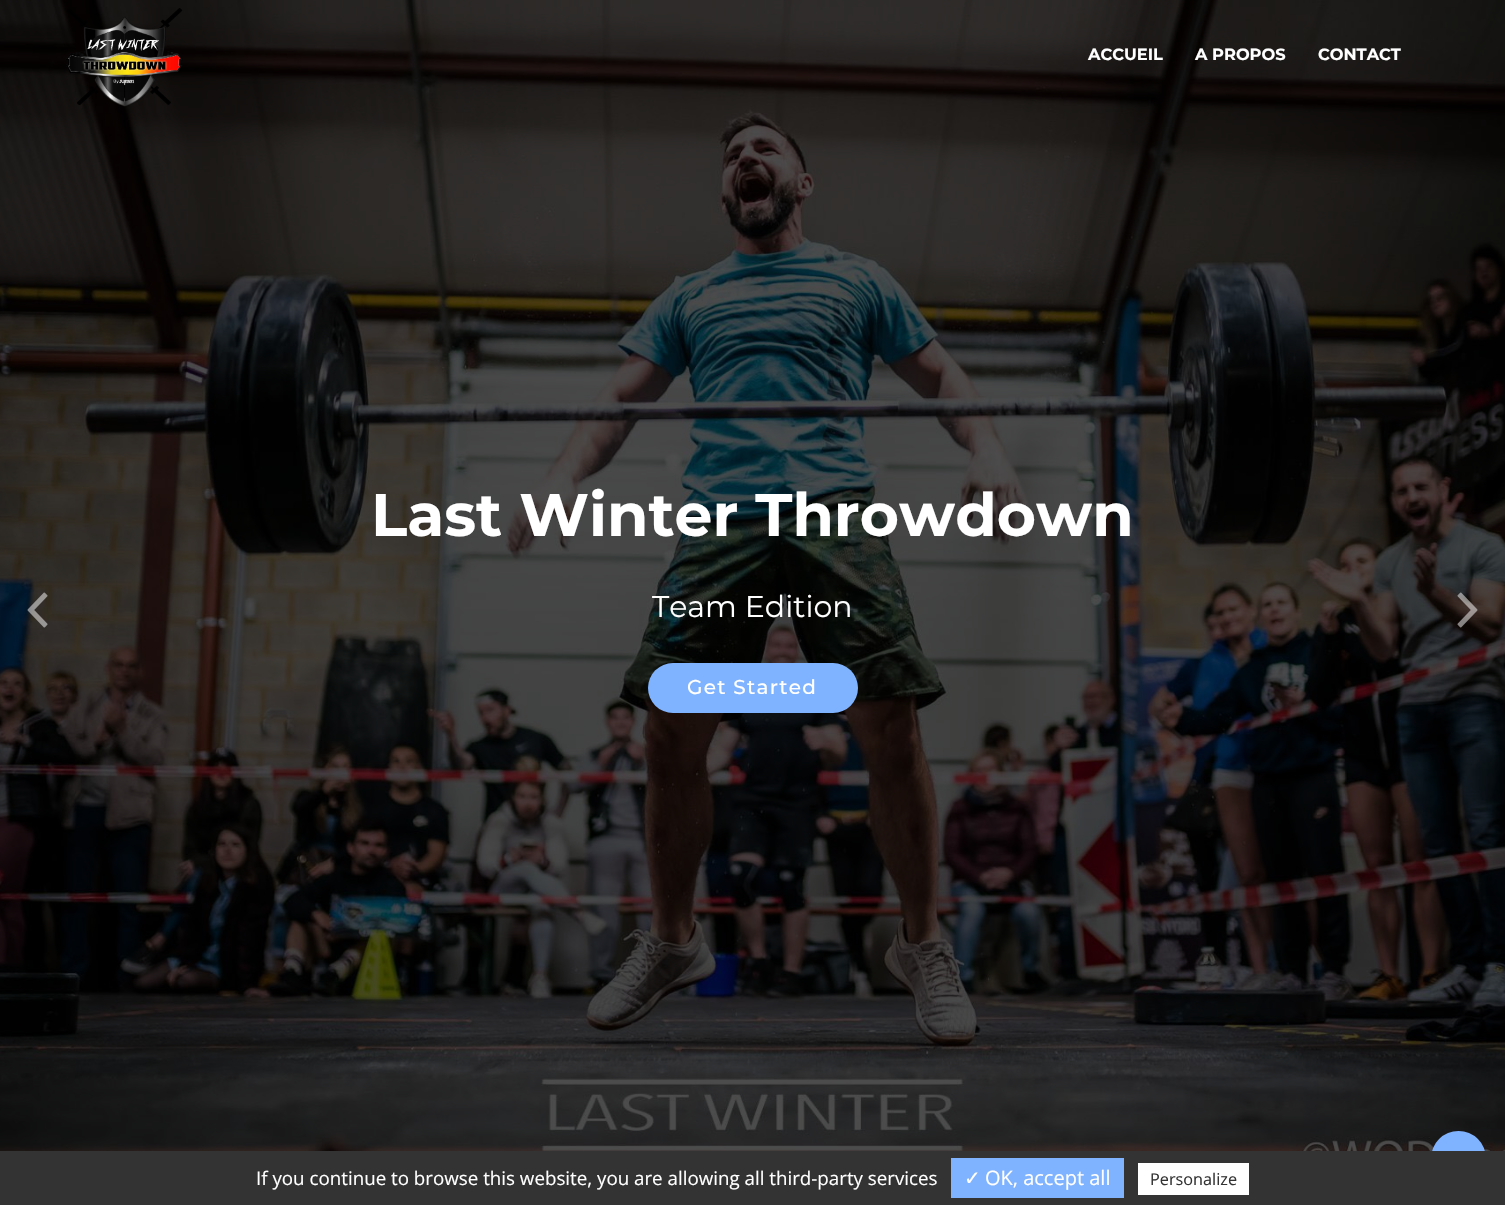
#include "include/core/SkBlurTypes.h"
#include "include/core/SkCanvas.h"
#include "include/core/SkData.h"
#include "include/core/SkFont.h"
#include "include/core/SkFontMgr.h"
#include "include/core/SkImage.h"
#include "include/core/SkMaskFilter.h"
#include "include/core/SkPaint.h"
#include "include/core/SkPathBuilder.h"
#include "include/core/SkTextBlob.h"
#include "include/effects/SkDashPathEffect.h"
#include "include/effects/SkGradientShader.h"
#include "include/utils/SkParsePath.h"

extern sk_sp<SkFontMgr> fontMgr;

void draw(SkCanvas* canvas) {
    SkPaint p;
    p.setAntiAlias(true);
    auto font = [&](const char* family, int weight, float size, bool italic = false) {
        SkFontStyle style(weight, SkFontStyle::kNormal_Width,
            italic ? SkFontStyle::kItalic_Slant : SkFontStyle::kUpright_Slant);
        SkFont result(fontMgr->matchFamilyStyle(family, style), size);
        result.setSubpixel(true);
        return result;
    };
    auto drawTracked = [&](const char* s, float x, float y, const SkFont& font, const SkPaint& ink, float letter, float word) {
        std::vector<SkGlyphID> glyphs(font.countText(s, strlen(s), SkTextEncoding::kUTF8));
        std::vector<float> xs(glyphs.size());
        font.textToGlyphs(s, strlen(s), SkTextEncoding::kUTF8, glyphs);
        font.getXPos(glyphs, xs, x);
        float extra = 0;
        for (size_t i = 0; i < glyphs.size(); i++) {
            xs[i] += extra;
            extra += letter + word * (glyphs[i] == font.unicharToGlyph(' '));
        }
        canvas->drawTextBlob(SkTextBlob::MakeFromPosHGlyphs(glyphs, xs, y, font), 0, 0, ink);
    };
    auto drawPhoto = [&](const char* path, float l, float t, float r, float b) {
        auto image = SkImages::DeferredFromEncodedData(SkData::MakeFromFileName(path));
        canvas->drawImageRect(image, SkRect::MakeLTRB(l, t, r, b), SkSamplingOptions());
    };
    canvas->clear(0xFFFFFFFF);
    drawPhoto("media/3.png", 0, 0, 1505, 1151);
    drawPhoto("media/1.png", 66, 8, 183, 107);
    auto font1 = font("Montserrat", 700, 16.25f);
    p.setColor(0xFFFFFFFF);
    {
        const struct { const char* s; float x, y; } items[] = {
            {"ACCUEIL", 1088, 60},
            {"A PROPOS", 1195, 60},
            {"CONTACT", 1318, 60},
        };
        for (auto [s, x, y] : items) {
            canvas->drawString(s, x, y, font1, p);
        }
    }
    drawPhoto("media/2.png", 27, 592, 48, 628);
    auto font2 = font("Montserrat", 700, 60);
    canvas->drawString("Last Winter Throwdown", 371, 536, font2, p);
    auto font3 = font("Montserrat", 400, 30);
    canvas->drawString("Team Edition", 652, 617, font3, p);
    p.setColor(0xFF80B3FF);
    canvas->drawRoundRect(SkRect::MakeLTRB(648, 663, 858, 713), 25, 25, p);
    auto font4 = font("Montserrat", 500, 20);
    p.setColor(0xFFFFFFFF);
    drawTracked("Get Started", 687, 694, font4, p, 1.25f, 0);
    drawPhoto("media/4.png", 1457, 592, 1478, 628);
    p.setColor(0xFF80B3FF);
    canvas->drawCircle(1458.5f, 1158.5f, 27.5f, p);
    p.setColor(0xFF333333);
    canvas->drawRect(SkRect::MakeLTRB(0, 1151, 1505, 1205), p);
    auto font5 = font("Open Sans", 400, 18.75f);
    p.setColor(0xFFFFFFFF);
    canvas->drawString("If you continue to browse this website, you are allowing all third-party services", 256, 1185, font5, p);
    p.setColor(0xFF80B3FF);
    canvas->drawRect(SkRect::MakeLTRB(951, 1158, 1124, 1198), p);
    auto font6 = font("DejaVu Sans", 400, 20);
    p.setColor(0xFFFFFFFF);
    canvas->drawString("✓", 964, 1185, font6, p);
    auto font7 = font("Open Sans", 400, 20);
    canvas->drawString("OK, accept all", 985, 1185, font7, p);
    canvas->drawRect(SkRect::MakeLTRB(1138, 1163, 1249, 1195), p);
    auto font8 = font("Open Sans", 400, 16.25f);
    p.setColor(0xFF333333);
    canvas->drawString("Personalize", 1150, 1185, font8, p);
}
